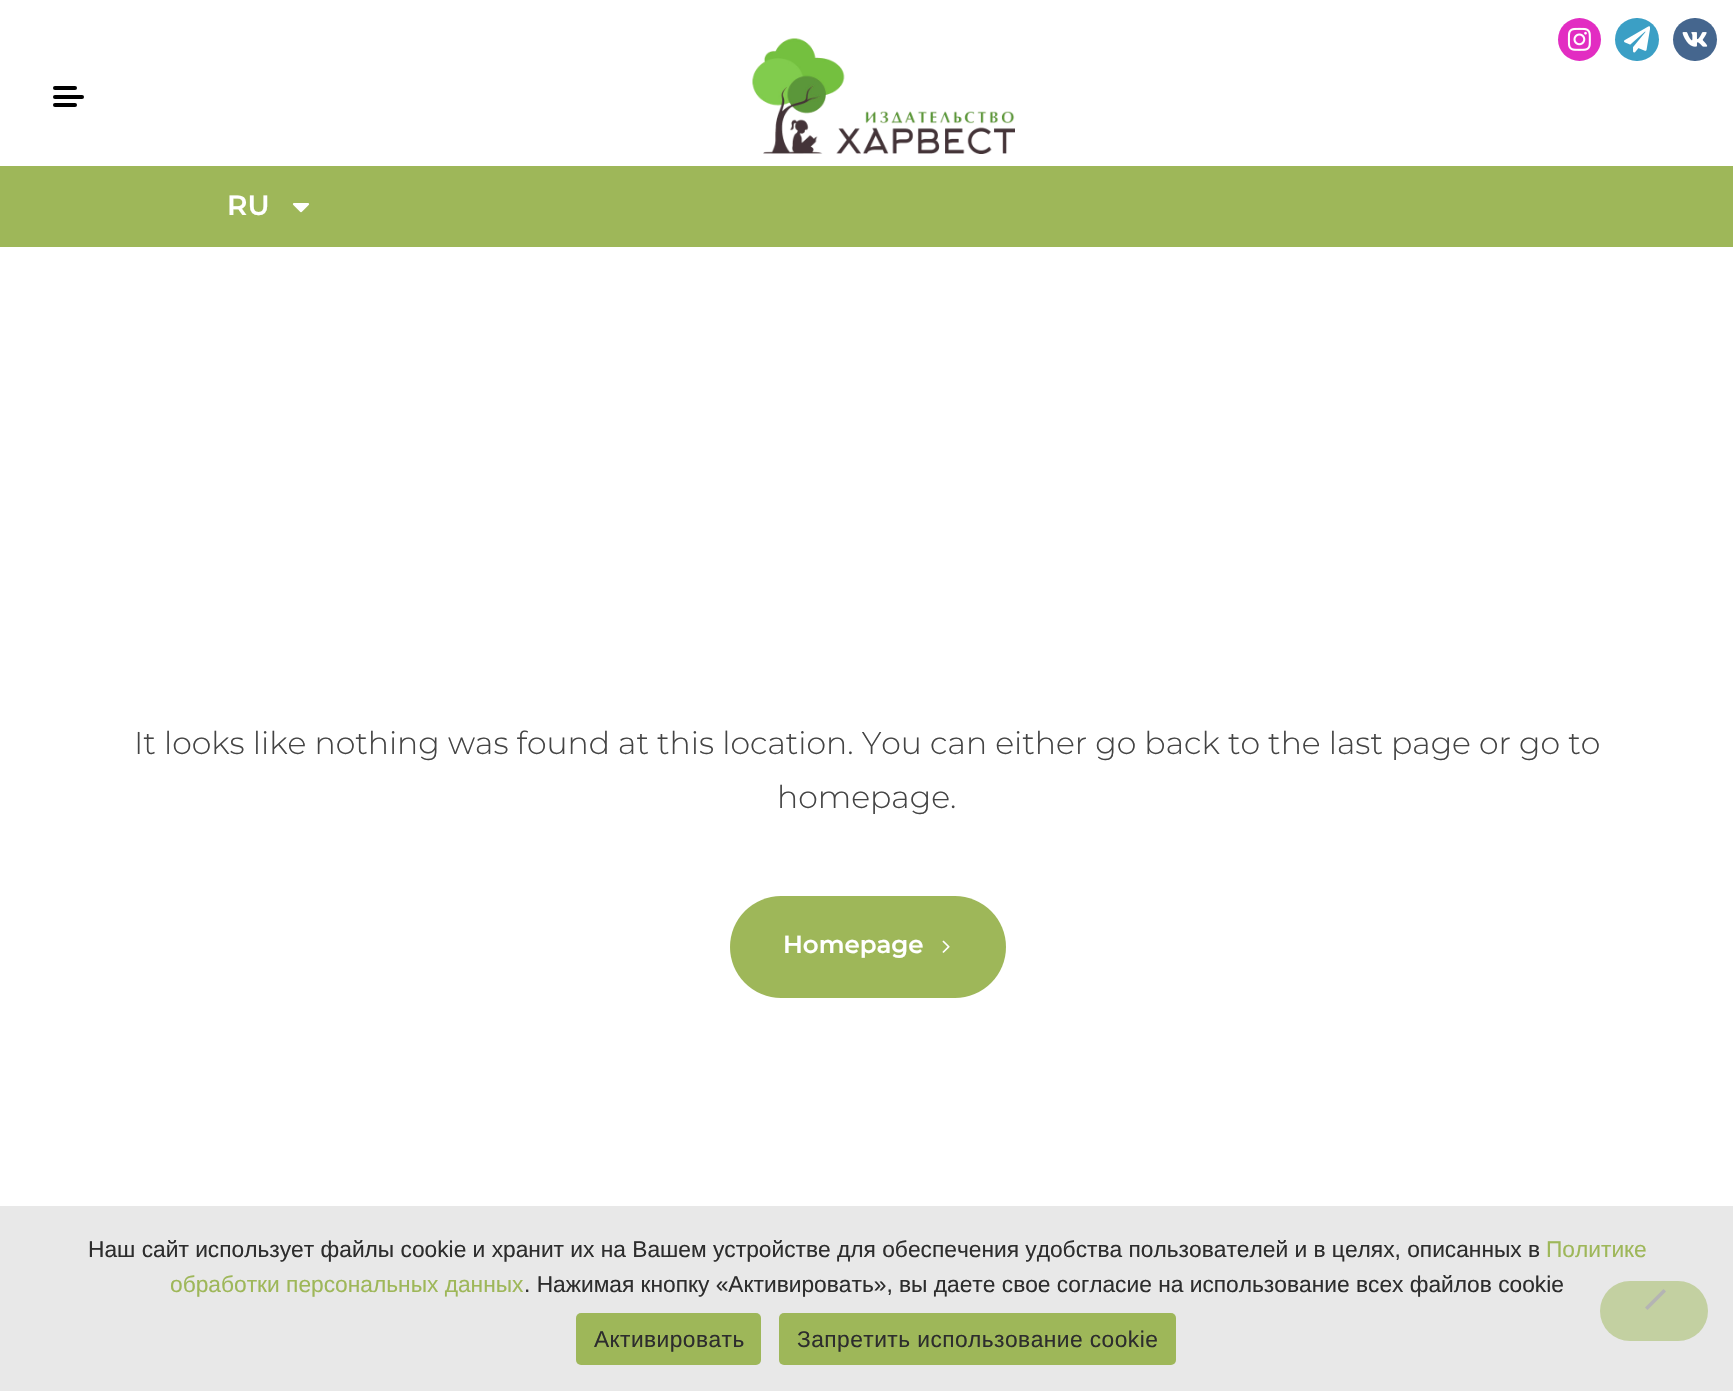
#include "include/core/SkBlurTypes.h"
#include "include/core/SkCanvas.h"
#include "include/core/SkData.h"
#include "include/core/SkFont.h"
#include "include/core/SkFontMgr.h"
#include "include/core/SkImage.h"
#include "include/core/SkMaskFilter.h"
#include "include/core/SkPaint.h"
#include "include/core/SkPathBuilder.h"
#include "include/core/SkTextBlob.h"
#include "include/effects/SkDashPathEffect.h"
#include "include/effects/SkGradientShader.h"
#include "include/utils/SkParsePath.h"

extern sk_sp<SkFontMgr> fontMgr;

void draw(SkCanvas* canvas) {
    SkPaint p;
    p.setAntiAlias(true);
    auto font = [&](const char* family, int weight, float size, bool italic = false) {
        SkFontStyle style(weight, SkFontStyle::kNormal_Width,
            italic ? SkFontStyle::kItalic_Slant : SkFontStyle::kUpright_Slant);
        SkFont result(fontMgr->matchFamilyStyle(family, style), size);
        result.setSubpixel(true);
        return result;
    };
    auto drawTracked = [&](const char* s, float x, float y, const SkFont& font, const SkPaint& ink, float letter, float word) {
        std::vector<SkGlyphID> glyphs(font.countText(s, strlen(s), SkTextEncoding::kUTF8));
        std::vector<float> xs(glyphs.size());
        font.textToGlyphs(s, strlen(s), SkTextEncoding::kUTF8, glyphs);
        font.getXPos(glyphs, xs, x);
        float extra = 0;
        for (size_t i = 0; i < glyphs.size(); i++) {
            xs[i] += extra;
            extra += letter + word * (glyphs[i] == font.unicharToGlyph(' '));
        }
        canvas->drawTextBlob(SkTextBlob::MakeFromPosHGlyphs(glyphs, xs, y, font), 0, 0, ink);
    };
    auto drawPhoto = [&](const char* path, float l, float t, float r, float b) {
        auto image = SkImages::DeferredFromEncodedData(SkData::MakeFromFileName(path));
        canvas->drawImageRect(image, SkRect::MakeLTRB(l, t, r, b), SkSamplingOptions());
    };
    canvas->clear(0xFFFFFFFF);
    p.setColor(0xFF000000);
    canvas->drawRoundRect(SkRect::MakeLTRB(53, 86, 77, 90), 2, 2, p);
    canvas->drawRoundRect(SkRect::MakeLTRB(53, 95, 84, 99), 2, 2, p);
    canvas->drawRoundRect(SkRect::MakeLTRB(53, 103, 77, 107), 2, 2, p);
    drawPhoto("media/1.png", 752, 38, 1015, 154);
    p.setColor(0xFFE22DC2);
    canvas->drawCircle(1579.5f, 39.5f, 21.5f, p);
    drawPhoto("media/2.png", 1567, 27, 1591, 51);
    p.setColor(0xFF3B9FC5);
    canvas->drawRoundRect(SkRect::MakeLTRB(1615, 18, 1659, 61), 21.5f, 21.5f, p);
    drawPhoto("media/3.png", 1624, 26, 1650, 53);
    p.setColor(0xFF45668E);
    canvas->drawRoundRect(SkRect::MakeLTRB(1673, 18, 1717, 61), 21.5f, 21.5f, p);
    drawPhoto("media/4.png", 1682, 32, 1708, 47);
    p.setColor(0xFF9EB759);
    canvas->drawRect(SkRect::MakeLTRB(0, 166, 1733, 247), p);
    auto font1 = font("Montserrat", 600, 28);
    p.setColor(0xFFFFFFFF);
    canvas->drawString("RU", 227, 215, font1, p);
    drawPhoto("media/5.png", 292, 203, 310, 213);
    auto font2 = font("Montserrat", 300, 31.5f);
    p.setColor(0xFF444444);
    canvas->drawString("It looks like nothing was found at this location. You can either go back to the last page or go to", 134, 754, font2, p);
    canvas->drawString("homepage.", 777, 808, font2, p);
    p.setColor(0xFF9EB759);
    canvas->drawRoundRect(SkRect::MakeLTRB(730, 896, 1006, 998), 51, 51, p);
    auto font3 = font("Montserrat", 600, 24.5f);
    p.setColor(0xFFFFFFFF);
    canvas->drawString("Homepage", 783, 953, font3, p);
    drawPhoto("media/6.png", 942, 940, 950, 953);
    p.setColor(0xFFE8E8E8);
    canvas->drawRect(SkRect::MakeLTRB(0, 1206, 1733, 1391), p);
    auto font4 = font("Liberation Sans", 400, 22.75f);
    p.setColor(0xFF2D2D2D);
    canvas->drawString("Наш сайт использует файлы сооkіе и хранит их на Вашем устройстве для обеспечения удобства пользователей и в целях, описанных в", 88, 1257, font4, p);
    p.setColor(0xFF9EB759);
    canvas->drawString("Политике", 1546, 1257, font4, p);
    canvas->drawString("обработки персональных данных", 170, 1292, font4, p);
    p.setColor(0xFF2D2D2D);
    canvas->drawString(". Нажимая кнопку «Активировать», вы даете свое согласие на использование всех файлов сооkіе", 524, 1292, font4, p);
    p.setColor(0xFF9EB759);
    canvas->drawRoundRect(SkRect::MakeLTRB(576, 1313, 761, 1365), 5, 5, p);
    p.setColor(0xFF2D2D2D);
    drawTracked("Активировать", 594, 1347, font4, p, 0.45f, 0);
    p.setColor(0xFF9EB759);
    canvas->drawRoundRect(SkRect::MakeLTRB(779, 1313, 1176, 1365), 5, 5, p);
    p.setColor(0xFF2D2D2D);
    drawTracked("Запретить использование cookie", 797, 1347, font4, p, 0.45f, 0);
    p.setColor(0xFFC3D0A1);
    canvas->drawRoundRect(SkRect::MakeLTRB(1600, 1281, 1708, 1341), 30, 30, p);
    p.setColor(0xFFB4B4B4);
    canvas->drawPath(SkPathBuilder().moveTo(1663.5f, 1289).lineTo(1666, 1291.5f).lineTo(1647.5f, 1310).lineTo(1645, 1307.5f).close().detach(), p);
}
